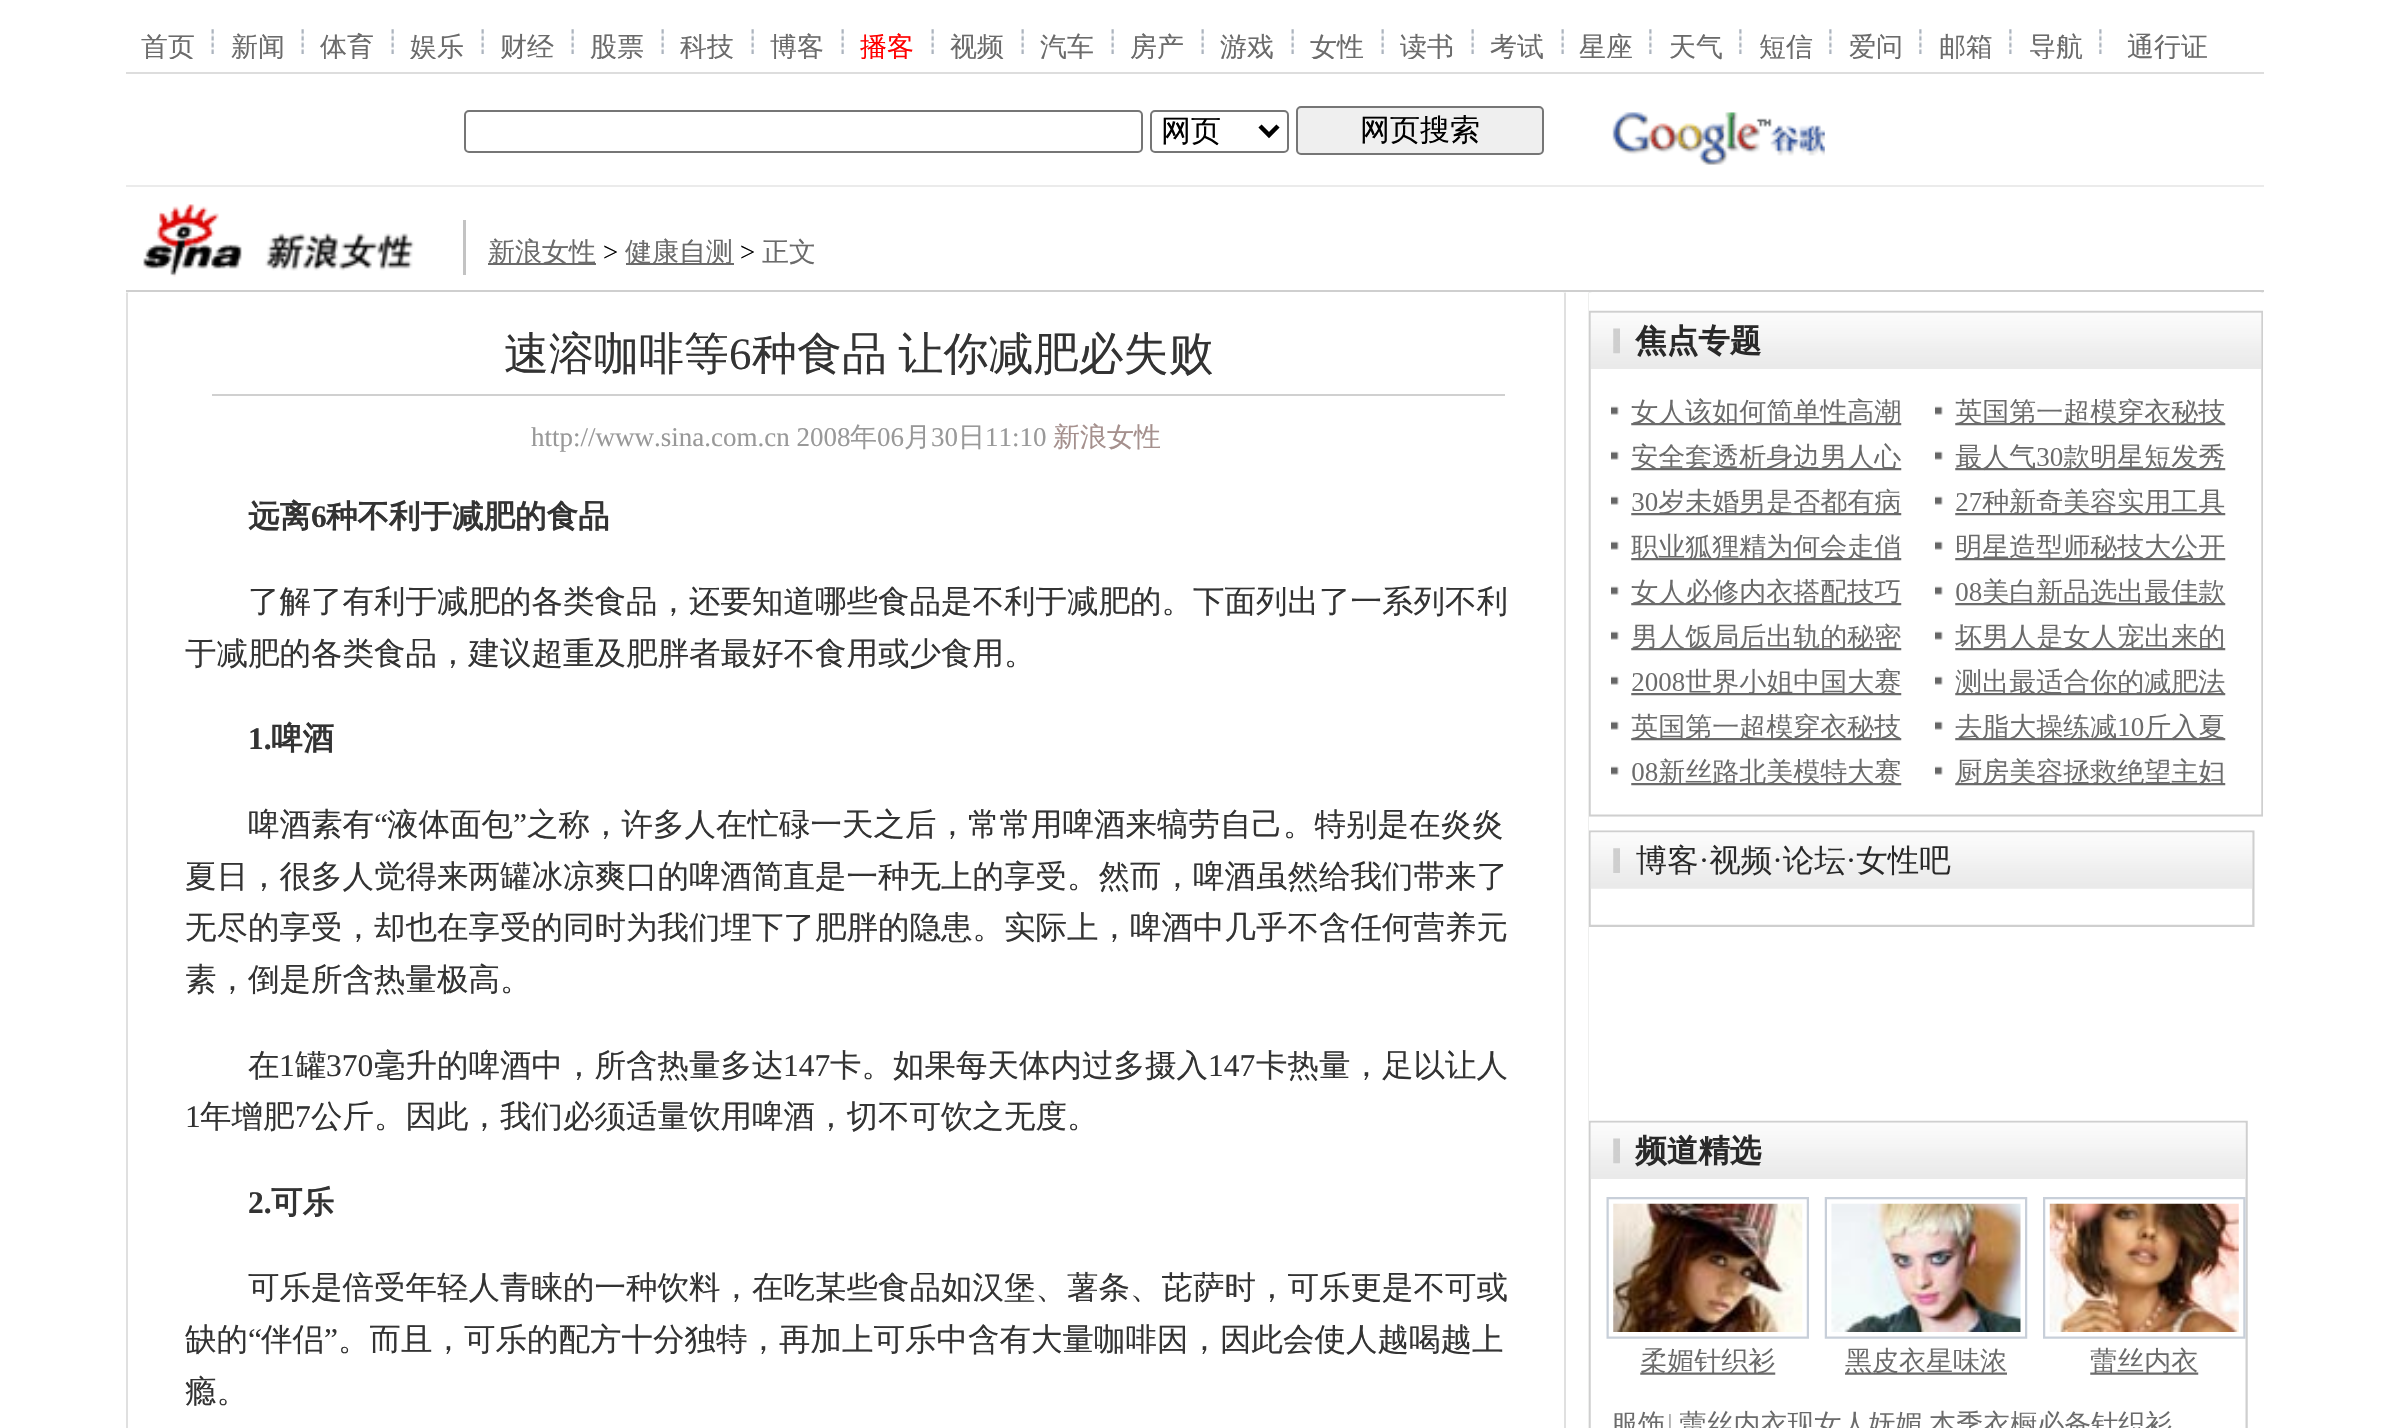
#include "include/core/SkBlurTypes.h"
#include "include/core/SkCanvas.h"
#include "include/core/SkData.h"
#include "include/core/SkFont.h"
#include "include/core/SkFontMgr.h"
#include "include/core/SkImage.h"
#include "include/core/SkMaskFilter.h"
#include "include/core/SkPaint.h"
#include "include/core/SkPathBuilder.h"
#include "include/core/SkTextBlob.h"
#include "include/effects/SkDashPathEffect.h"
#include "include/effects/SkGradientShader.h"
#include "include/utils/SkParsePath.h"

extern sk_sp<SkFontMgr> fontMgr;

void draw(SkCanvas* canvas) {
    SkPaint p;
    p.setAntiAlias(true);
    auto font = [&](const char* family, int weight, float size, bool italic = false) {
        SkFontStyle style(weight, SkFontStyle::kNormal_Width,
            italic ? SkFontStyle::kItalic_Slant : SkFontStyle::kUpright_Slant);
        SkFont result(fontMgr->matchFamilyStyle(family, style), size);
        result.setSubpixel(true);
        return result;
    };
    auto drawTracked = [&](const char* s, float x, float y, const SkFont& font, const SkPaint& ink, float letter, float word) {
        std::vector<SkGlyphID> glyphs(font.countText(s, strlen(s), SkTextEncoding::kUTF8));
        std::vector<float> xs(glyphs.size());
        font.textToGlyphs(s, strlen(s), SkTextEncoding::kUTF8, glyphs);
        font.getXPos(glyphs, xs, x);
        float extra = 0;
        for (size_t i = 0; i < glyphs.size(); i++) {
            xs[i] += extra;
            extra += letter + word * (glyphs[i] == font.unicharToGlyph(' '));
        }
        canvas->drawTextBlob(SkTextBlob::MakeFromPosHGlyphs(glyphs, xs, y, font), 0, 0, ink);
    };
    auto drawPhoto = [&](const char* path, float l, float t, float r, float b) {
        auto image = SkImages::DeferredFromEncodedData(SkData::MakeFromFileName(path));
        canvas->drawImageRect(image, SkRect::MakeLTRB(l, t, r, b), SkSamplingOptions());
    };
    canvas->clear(0xFFFFFFFF);
    p.setColor(0xFFDDDDDD);
    canvas->drawRect(SkRect::MakeLTRB(126, 72, 2264, 74), p);
    canvas->save();
    canvas->clipRect(SkRect::MakeLTRB(126, 29, 209, 59));
    auto font1 = font("WenQuanYi Zen Hei", 500, 27);
    p.setColor(0xFF6B6B6B);
    canvas->drawString("首页", 141, 56, font1, p);
    canvas->restore();
    drawPhoto("media/1.png", 211, 29, 214, 54);
    canvas->save();
    canvas->clipRect(SkRect::MakeLTRB(216, 29, 299, 59));
    canvas->drawString("新闻", 231, 56, font1, p);
    canvas->restore();
    drawPhoto("media/1.png", 301, 29, 304, 54);
    canvas->save();
    canvas->clipRect(SkRect::MakeLTRB(306, 29, 389, 59));
    canvas->drawString("体育", 320, 56, font1, p);
    canvas->restore();
    drawPhoto("media/1.png", 391, 29, 394, 54);
    canvas->save();
    canvas->clipRect(SkRect::MakeLTRB(396, 29, 479, 59));
    canvas->drawString("娱乐", 410, 56, font1, p);
    canvas->restore();
    drawPhoto("media/1.png", 481, 29, 484, 54);
    canvas->save();
    canvas->clipRect(SkRect::MakeLTRB(486, 29, 569, 59));
    canvas->drawString("财经", 500, 56, font1, p);
    canvas->restore();
    drawPhoto("media/1.png", 571, 29, 574, 54);
    canvas->save();
    canvas->clipRect(SkRect::MakeLTRB(576, 29, 659, 59));
    canvas->drawString("股票", 590, 56, font1, p);
    canvas->restore();
    drawPhoto("media/1.png", 661, 29, 664, 54);
    canvas->save();
    canvas->clipRect(SkRect::MakeLTRB(666, 29, 749, 59));
    canvas->drawString("科技", 680, 56, font1, p);
    canvas->restore();
    drawPhoto("media/1.png", 751, 29, 754, 54);
    canvas->save();
    canvas->clipRect(SkRect::MakeLTRB(756, 29, 839, 59));
    canvas->drawString("博客", 770, 56, font1, p);
    canvas->restore();
    drawPhoto("media/1.png", 841, 29, 844, 54);
    canvas->save();
    canvas->clipRect(SkRect::MakeLTRB(846, 29, 929, 59));
    p.setColor(0xFFFF0000);
    canvas->drawString("播客", 860, 56, font1, p);
    canvas->restore();
    drawPhoto("media/1.png", 931, 29, 934, 54);
    canvas->save();
    canvas->clipRect(SkRect::MakeLTRB(936, 29, 1019, 59));
    p.setColor(0xFF6B6B6B);
    canvas->drawString("视频", 950, 56, font1, p);
    canvas->restore();
    drawPhoto("media/1.png", 1021, 29, 1024, 54);
    canvas->save();
    canvas->clipRect(SkRect::MakeLTRB(1026, 29, 1109, 59));
    canvas->drawString("汽车", 1040, 56, font1, p);
    canvas->restore();
    drawPhoto("media/1.png", 1111, 29, 1114, 54);
    canvas->save();
    canvas->clipRect(SkRect::MakeLTRB(1116, 29, 1199, 59));
    canvas->drawString("房产", 1130, 56, font1, p);
    canvas->restore();
    drawPhoto("media/1.png", 1201, 29, 1204, 54);
    canvas->save();
    canvas->clipRect(SkRect::MakeLTRB(1206, 29, 1289, 59));
    canvas->drawString("游戏", 1220, 56, font1, p);
    canvas->restore();
    drawPhoto("media/1.png", 1291, 29, 1294, 54);
    canvas->save();
    canvas->clipRect(SkRect::MakeLTRB(1296, 29, 1379, 59));
    canvas->drawString("女性", 1310, 56, font1, p);
    canvas->restore();
    drawPhoto("media/1.png", 1381, 29, 1384, 54);
    canvas->save();
    canvas->clipRect(SkRect::MakeLTRB(1386, 29, 1469, 59));
    canvas->drawString("读书", 1400, 56, font1, p);
    canvas->restore();
    drawPhoto("media/1.png", 1471, 29, 1474, 54);
    canvas->save();
    canvas->clipRect(SkRect::MakeLTRB(1476, 29, 1559, 59));
    canvas->drawString("考试", 1490, 56, font1, p);
    canvas->restore();
    drawPhoto("media/1.png", 1561, 29, 1564, 54);
    canvas->drawString("星座", 1579, 56, font1, p);
    drawPhoto("media/2.png", 1649, 29, 1652, 54);
    canvas->drawString("天气", 1669, 56, font1, p);
    drawPhoto("media/2.png", 1739, 29, 1742, 54);
    canvas->save();
    canvas->clipRect(SkRect::MakeLTRB(1744, 29, 1827, 59));
    canvas->drawString("短信", 1759, 56, font1, p);
    canvas->restore();
    drawPhoto("media/2.png", 1829, 29, 1832, 54);
    canvas->save();
    canvas->clipRect(SkRect::MakeLTRB(1834, 29, 1917, 59));
    canvas->drawString("爱问", 1849, 56, font1, p);
    canvas->restore();
    drawPhoto("media/2.png", 1919, 29, 1922, 54);
    canvas->save();
    canvas->clipRect(SkRect::MakeLTRB(1924, 29, 2007, 59));
    canvas->drawString("邮箱", 1939, 56, font1, p);
    canvas->restore();
    drawPhoto("media/2.png", 2009, 29, 2012, 54);
    canvas->save();
    canvas->clipRect(SkRect::MakeLTRB(2014, 29, 2097, 59));
    canvas->drawString("导航", 2029, 56, font1, p);
    canvas->restore();
    drawPhoto("media/2.png", 2099, 29, 2102, 54);
    canvas->save();
    canvas->clipRect(SkRect::MakeLTRB(2104, 29, 2230, 59));
    canvas->drawString("通行证", 2127, 56, font1, p);
    canvas->restore();
    p.setColor(0xFFEBEBEB);
    canvas->drawRect(SkRect::MakeLTRB(126, 185, 2264, 187), p);
    p.setStyle(SkPaint::kStroke_Style);
    p.setStrokeWidth(2);
    p.setColor(0xFF767676);
    canvas->drawRoundRect(SkRect::MakeLTRB(465, 111, 1142, 152), 4, 4, p);
    canvas->drawRoundRect(SkRect::MakeLTRB(1151, 111, 1288, 152), 4, 4, p);
    p.setStrokeWidth(4.5f);
    p.setColor(0xFF000000);
    canvas->drawPath(SkPathBuilder().moveTo(1260, 126).lineTo(1269, 135).lineTo(1278, 126).detach(), p);
    auto font2 = font("WenQuanYi Zen Hei", 500, 30);
    p.setStyle(SkPaint::kFill_Style);
    canvas->drawString("网页", 1161, 141, font2, p);
    p.setColor(0xFFEFEFEF);
    canvas->drawRoundRect(SkRect::MakeLTRB(1297, 107, 1543, 154), 4, 4, p);
    p.setStyle(SkPaint::kStroke_Style);
    p.setStrokeWidth(2);
    p.setColor(0xFF767676);
    canvas->drawRoundRect(SkRect::MakeLTRB(1297, 107, 1543, 154), 4, 4, p);
    p.setStyle(SkPaint::kFill_Style);
    p.setColor(0xFF000000);
    canvas->drawString("网页搜索", 1360, 140, font2, p);
    drawPhoto("media/3.png", 1612, 112, 1825, 165);
    drawPhoto("media/4.png", 143, 204, 415, 277);
    p.setColor(0xFFC3C3C3);
    canvas->drawRect(SkRect::MakeLTRB(463, 220, 466, 275), p);
    p.setColor(0xFF6B6B6B);
    canvas->drawRect(SkRect::MakeLTRB(488, 263, 596, 265), p);
    canvas->drawString("新浪女性", 488, 261, font1, p);
    auto font3 = font("Liberation Serif", 400, 27);
    p.setColor(0xFF000000);
    canvas->drawString(">", 603, 261, font3, p);
    p.setColor(0xFF6B6B6B);
    canvas->drawRect(SkRect::MakeLTRB(626, 263, 734, 265), p);
    canvas->drawString("健康自测", 625, 261, font1, p);
    p.setColor(0xFF000000);
    canvas->drawString(">", 740, 261, font3, p);
    p.setColor(0xFF6B6B6B);
    canvas->drawString("正文", 762, 261, font1, p);
    p.setColor(0xFFCFCFCF);
    canvas->drawRect(SkRect::MakeLTRB(126, 290, 2264, 292), p);
    drawPhoto("media/5.png", 126, 292, 1566, 293);
    {
        const struct { float l, t, r, b; SkColor color; } items[] = {
            {1564, 293, 1566, 1428, 0xFFE0E0E0},
            {126, 293, 128, 1428, 0xFFE0E0E0},
            {212, 394, 1505, 396, 0xFFD0D0D0},
        };
        for (auto [l, t, r, b, color] : items) {
            p.setColor(color);
            canvas->drawRect(SkRect::MakeLTRB(l, t, r, b), p);
        }
    }
    auto font4 = font("WenQuanYi Zen Hei", 500, 45);
    p.setColor(0xFF333333);
    canvas->drawString("速溶咖啡等", 504, 369, font4, p);
    auto font5 = font("Liberation Serif", 400, 45);
    canvas->drawString("6", 729, 369, font5, p);
    drawTracked("种食品 让你减肥必失败", 752, 369, font4, p, 0, -2);
    p.setColor(0xFF999999);
    canvas->drawString("http://www.sina.com.cn 2008", 531, 446, font3, p);
    canvas->drawString("年", 850, 446, font1, p);
    canvas->drawString("06", 877, 446, font3, p);
    canvas->drawString("月", 904, 446, font1, p);
    canvas->drawString("30", 931, 446, font3, p);
    canvas->drawString("日", 958, 446, font1, p);
    canvas->drawString("11:10", 985, 446, font3, p);
    p.setColor(0xFFA5908D);
    canvas->drawString("新浪女性", 1053, 446, font1, p);
    auto font6 = font("WenQuanYi Zen Hei", 700, 31.5f);
    p.setColor(0xFF333333);
    canvas->drawString("远离", 248, 527, font6, p);
    auto font7 = font("Liberation Serif", 700, 31.5f);
    canvas->drawString("6", 311, 527, font7, p);
    canvas->drawString("种不利于减肥的食品", 326, 527, font6, p);
    auto font8 = font("WenQuanYi Zen Hei", 500, 31.5f);
    canvas->drawString("了解了有利于减肥的各类食品，还要知道哪些食品是不利于减肥的。下面列出了一系列不利", 248, 612, font8, p);
    canvas->drawString("于减肥的各类食品，建议超重及肥胖者最好不食用或少食用。", 185, 664, font8, p);
    canvas->drawString("1.", 248, 749, font7, p);
    canvas->drawString("啤酒", 271, 749, font6, p);
    canvas->drawString("啤酒素有", 248, 835, font8, p);
    auto font9 = font("Liberation Serif", 400, 31.5f);
    canvas->drawString("“", 374, 835, font9, p);
    canvas->drawString("液体面包", 387, 835, font8, p);
    canvas->drawString("”", 513, 835, font9, p);
    {
        const struct { const char* s; float x, y; } items[] = {
            {"之称，许多人在忙碌一天之后，常常用啤酒来犒劳自己。特别是在炎炎", 527, 835},
            {"夏日，很多人觉得来两罐冰凉爽口的啤酒简直是一种无上的享受。然而，啤酒虽然给我们带来了", 185, 887},
            {"无尽的享受，却也在享受的同时为我们埋下了肥胖的隐患。实际上，啤酒中几乎不含任何营养元", 185, 938},
            {"素，倒是所含热量极高。", 185, 990},
            {"在", 248, 1076},
        };
        for (auto [s, x, y] : items) {
            canvas->drawString(s, x, y, font8, p);
        }
    }
    canvas->drawString("1", 279, 1076, font9, p);
    canvas->drawString("罐", 295, 1076, font8, p);
    canvas->drawString("370", 326, 1076, font9, p);
    canvas->drawString("毫升的啤酒中，所含热量多达", 374, 1076, font8, p);
    canvas->drawString("147", 783, 1076, font9, p);
    canvas->drawString("卡。如果每天体内过多摄入", 830, 1076, font8, p);
    canvas->drawString("147", 1208, 1076, font9, p);
    canvas->drawString("卡热量，足以让人", 1256, 1076, font8, p);
    canvas->drawString("1", 185, 1127, font9, p);
    canvas->drawString("年增肥", 200, 1127, font8, p);
    canvas->drawString("7", 295, 1127, font9, p);
    canvas->drawString("公斤。因此，我们必须适量饮用啤酒，切不可饮之无度。", 311, 1127, font8, p);
    canvas->drawString("2.", 248, 1213, font7, p);
    canvas->drawString("可乐", 271, 1213, font6, p);
    canvas->drawString("可乐是倍受年轻人青睐的一种饮料，在吃某些食品如汉堡、薯条、芘萨时，可乐更是不可或", 248, 1298, font8, p);
    canvas->drawString("缺的", 185, 1350, font8, p);
    canvas->drawString("“", 248, 1350, font9, p);
    canvas->drawString("伴侣", 261, 1350, font8, p);
    canvas->drawString("”", 324, 1350, font9, p);
    canvas->drawString("。而且，可乐的配方十分独特，再加上可乐中含有大量咖啡因，因此会使人越喝越上", 338, 1350, font8, p);
    canvas->drawString("瘾。", 185, 1402, font8, p);
    drawPhoto("media/6.png", 1588, 292, 2264, 1428);
    p.setColor(0xFFFFFFFF);
    canvas->drawRect(SkRect::MakeLTRB(1589, 293, 2264, 1428), p);
    drawPhoto("media/7.png", 1589, 310, 2263, 817);
    drawPhoto("media/8.png", 1589, 830, 2255, 927);
    drawPhoto("media/9.png", 1589, 1120, 2248, 1428);
}
